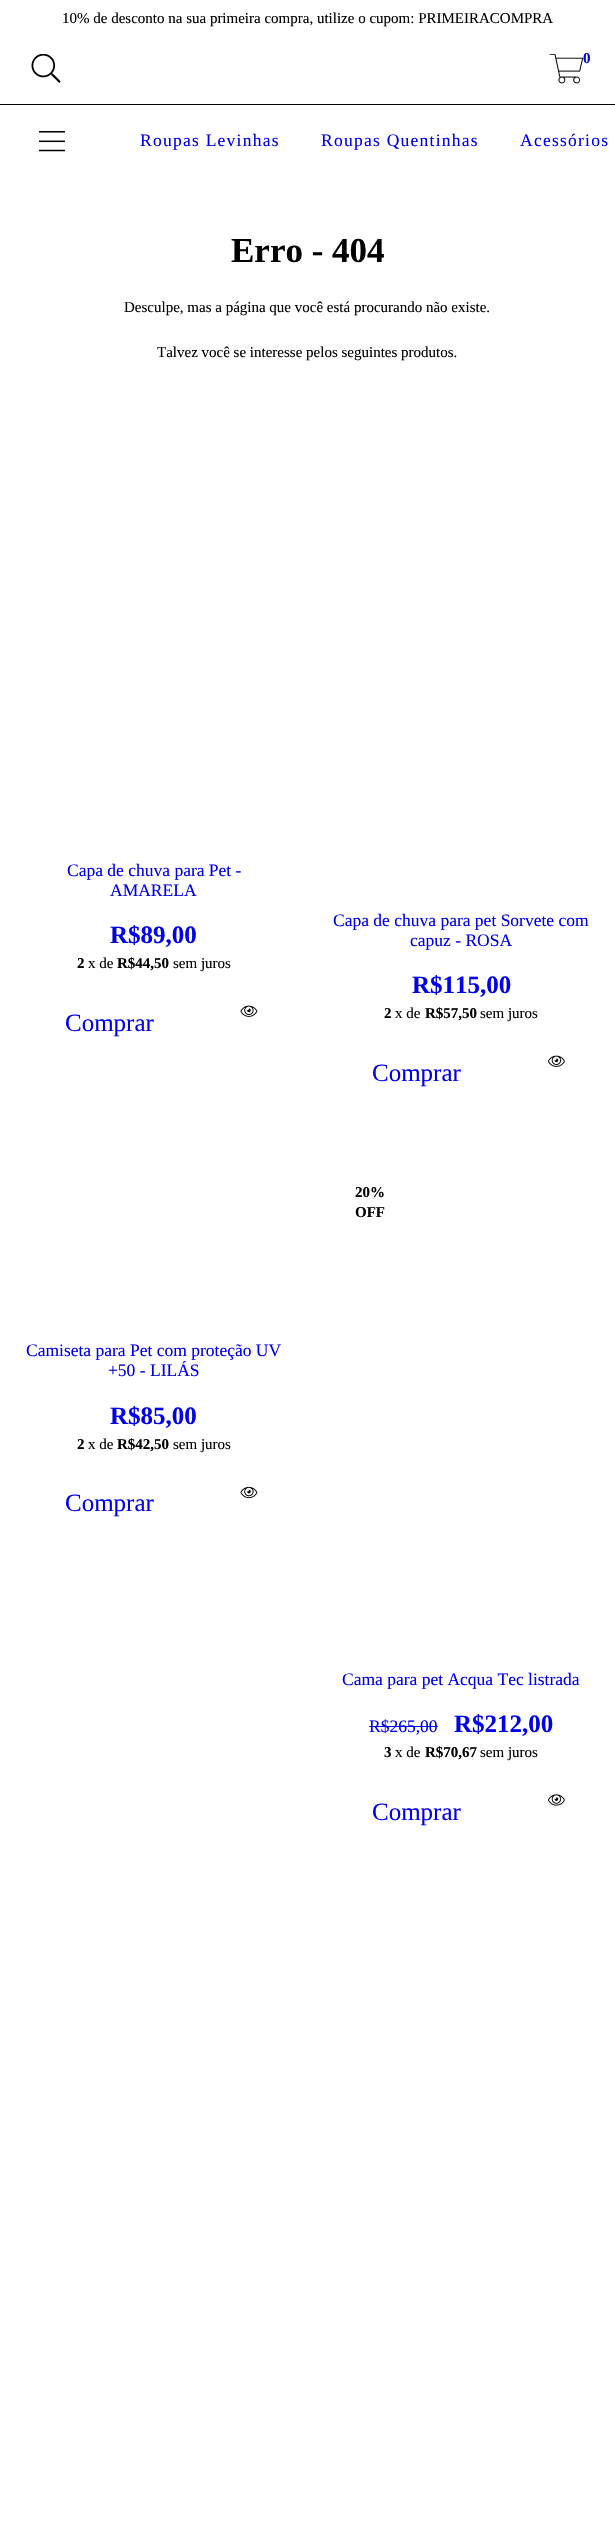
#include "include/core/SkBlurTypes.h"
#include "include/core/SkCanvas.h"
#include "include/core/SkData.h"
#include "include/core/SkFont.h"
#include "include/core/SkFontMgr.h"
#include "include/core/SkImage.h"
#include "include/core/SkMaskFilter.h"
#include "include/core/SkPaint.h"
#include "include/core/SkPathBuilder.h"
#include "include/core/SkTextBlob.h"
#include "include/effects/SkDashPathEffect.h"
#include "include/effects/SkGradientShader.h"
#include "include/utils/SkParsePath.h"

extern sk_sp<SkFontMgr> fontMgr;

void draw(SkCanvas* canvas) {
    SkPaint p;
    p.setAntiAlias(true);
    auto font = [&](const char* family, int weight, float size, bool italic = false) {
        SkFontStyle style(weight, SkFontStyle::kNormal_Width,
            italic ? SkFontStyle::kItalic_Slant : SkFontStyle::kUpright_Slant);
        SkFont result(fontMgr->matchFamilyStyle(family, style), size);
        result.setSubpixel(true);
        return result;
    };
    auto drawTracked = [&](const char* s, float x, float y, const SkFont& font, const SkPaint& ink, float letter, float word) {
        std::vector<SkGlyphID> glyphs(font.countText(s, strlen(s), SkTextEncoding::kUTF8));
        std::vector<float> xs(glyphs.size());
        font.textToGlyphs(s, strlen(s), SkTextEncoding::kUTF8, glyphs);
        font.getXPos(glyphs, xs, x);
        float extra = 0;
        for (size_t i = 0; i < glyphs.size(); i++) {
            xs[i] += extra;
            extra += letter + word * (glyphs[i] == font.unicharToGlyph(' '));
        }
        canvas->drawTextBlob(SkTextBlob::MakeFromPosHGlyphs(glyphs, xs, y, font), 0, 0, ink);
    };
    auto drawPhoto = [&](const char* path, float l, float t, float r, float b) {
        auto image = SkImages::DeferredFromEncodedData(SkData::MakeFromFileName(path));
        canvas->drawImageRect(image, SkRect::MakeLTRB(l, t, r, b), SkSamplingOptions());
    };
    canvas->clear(0xFFFFFFFF);
    auto font1 = font("Liberation Serif", 400, 15);
    p.setColor(0xFF000000);
    canvas->drawString("10% de desconto na sua primeira compra, utilize o cupom: PRIMEIRACOMPRA", 62, 23, font1, p);
    drawPhoto("media/1.png", 31, 54, 61, 83);
    drawPhoto("media/2.png", 549, 54, 584, 84);
    auto font2 = font("Liberation Serif", 700, 15);
    p.setColor(0xFF0000EE);
    canvas->drawString("0", 583, 63, font2, p);
    p.setColor(0xFF000000);
    canvas->drawRect(SkRect::MakeLTRB(0, 104, 615, 105), p);
    drawPhoto("media/3.png", 39, 131, 65, 152);
    auto font3 = font("Liberation Serif", 400, 17.5f);
    p.setColor(0xFF0000EE);
    {
        const struct { const char* s; float x, y; } items[] = {
            {"Roupas Levinhas", 140, 146},
            {"Roupas Quentinhas", 321, 146},
            {"Acessórios", 520, 146},
        };
        for (auto [s, x, y] : items) {
            drawTracked(s, x, y, font3, p, 1.25f, 0);
        }
    }
    auto font4 = font("Liberation Serif", 700, 35);
    p.setColor(0xFF000000);
    canvas->drawString("Erro - 404", 231, 262, font4, p);
    canvas->drawString("Desculpe, mas a página que você está procurando não existe.", 124, 312, font1, p);
    canvas->drawString("Talvez você se interesse pelos seguintes produtos.", 157, 357, font1, p);
    p.setColor(0xFF0000EE);
    canvas->drawString("Capa de chuva para Pet -", 67, 876, font3, p);
    canvas->drawString("AMARELA", 110, 896, font3, p);
    auto font5 = font("Liberation Serif", 700, 25);
    canvas->drawString("R$89,00", 110, 943, font5, p);
    p.setColor(0xFF000000);
    canvas->drawString("2", 77, 968, font2, p);
    canvas->drawString("x de", 88, 968, font1, p);
    canvas->drawString("R$44,50", 117, 968, font2, p);
    canvas->drawString("sem juros", 173, 968, font1, p);
    drawPhoto("media/4.png", 240, 1005, 258, 1017);
    auto font6 = font("Liberation Serif", 400, 25);
    p.setColor(0xFF0000EE);
    canvas->drawString("Comprar", 65, 1031, font6, p);
    canvas->drawString("Capa de chuva para pet Sorvete com", 333, 926, font3, p);
    canvas->drawString("capuz - ROSA", 410, 946, font3, p);
    canvas->drawString("R$115,00", 412, 993, font5, p);
    p.setColor(0xFF000000);
    canvas->drawString("2", 384, 1018, font2, p);
    canvas->drawString("x de", 395, 1018, font1, p);
    canvas->drawString("R$57,50", 425, 1018, font2, p);
    canvas->drawString("sem juros", 480, 1018, font1, p);
    drawPhoto("media/5.png", 548, 1055, 565, 1067);
    p.setColor(0xFF0000EE);
    canvas->drawString("Comprar", 372, 1081, font6, p);
    canvas->drawString("Camiseta para Pet com proteção UV", 26, 1356, font3, p);
    canvas->drawString("+50 - LILÁS", 108, 1376, font3, p);
    canvas->drawString("R$85,00", 110, 1424, font5, p);
    p.setColor(0xFF000000);
    canvas->drawString("2", 77, 1449, font2, p);
    canvas->drawString("x de", 88, 1449, font1, p);
    canvas->drawString("R$42,50", 117, 1449, font2, p);
    canvas->drawString("sem juros", 173, 1449, font1, p);
    drawPhoto("media/6.png", 240, 1486, 258, 1499);
    p.setColor(0xFF0000EE);
    canvas->drawString("Comprar", 65, 1511, font6, p);
    p.setColor(0xFF000000);
    canvas->drawString("20%", 355, 1197, font2, p);
    canvas->drawString("OFF", 355, 1217, font2, p);
    p.setColor(0xFF0000EE);
    canvas->drawString("Cama para pet Acqua Tec listrada", 342, 1685, font3, p);
    canvas->drawString("R$265,00", 369, 1732, font3, p);
    canvas->drawRect(SkRect::MakeLTRB(369, 1726, 438, 1727), p);
    canvas->drawString("R$212,00", 454, 1732, font5, p);
    p.setColor(0xFF000000);
    canvas->drawString("3", 384, 1757, font2, p);
    canvas->drawString("x de", 395, 1757, font1, p);
    canvas->drawString("R$70,67", 425, 1757, font2, p);
    canvas->drawString("sem juros", 480, 1757, font1, p);
    drawPhoto("media/7.png", 548, 1794, 565, 1806);
    p.setColor(0xFF0000EE);
    canvas->drawString("Comprar", 372, 1820, font6, p);
}
